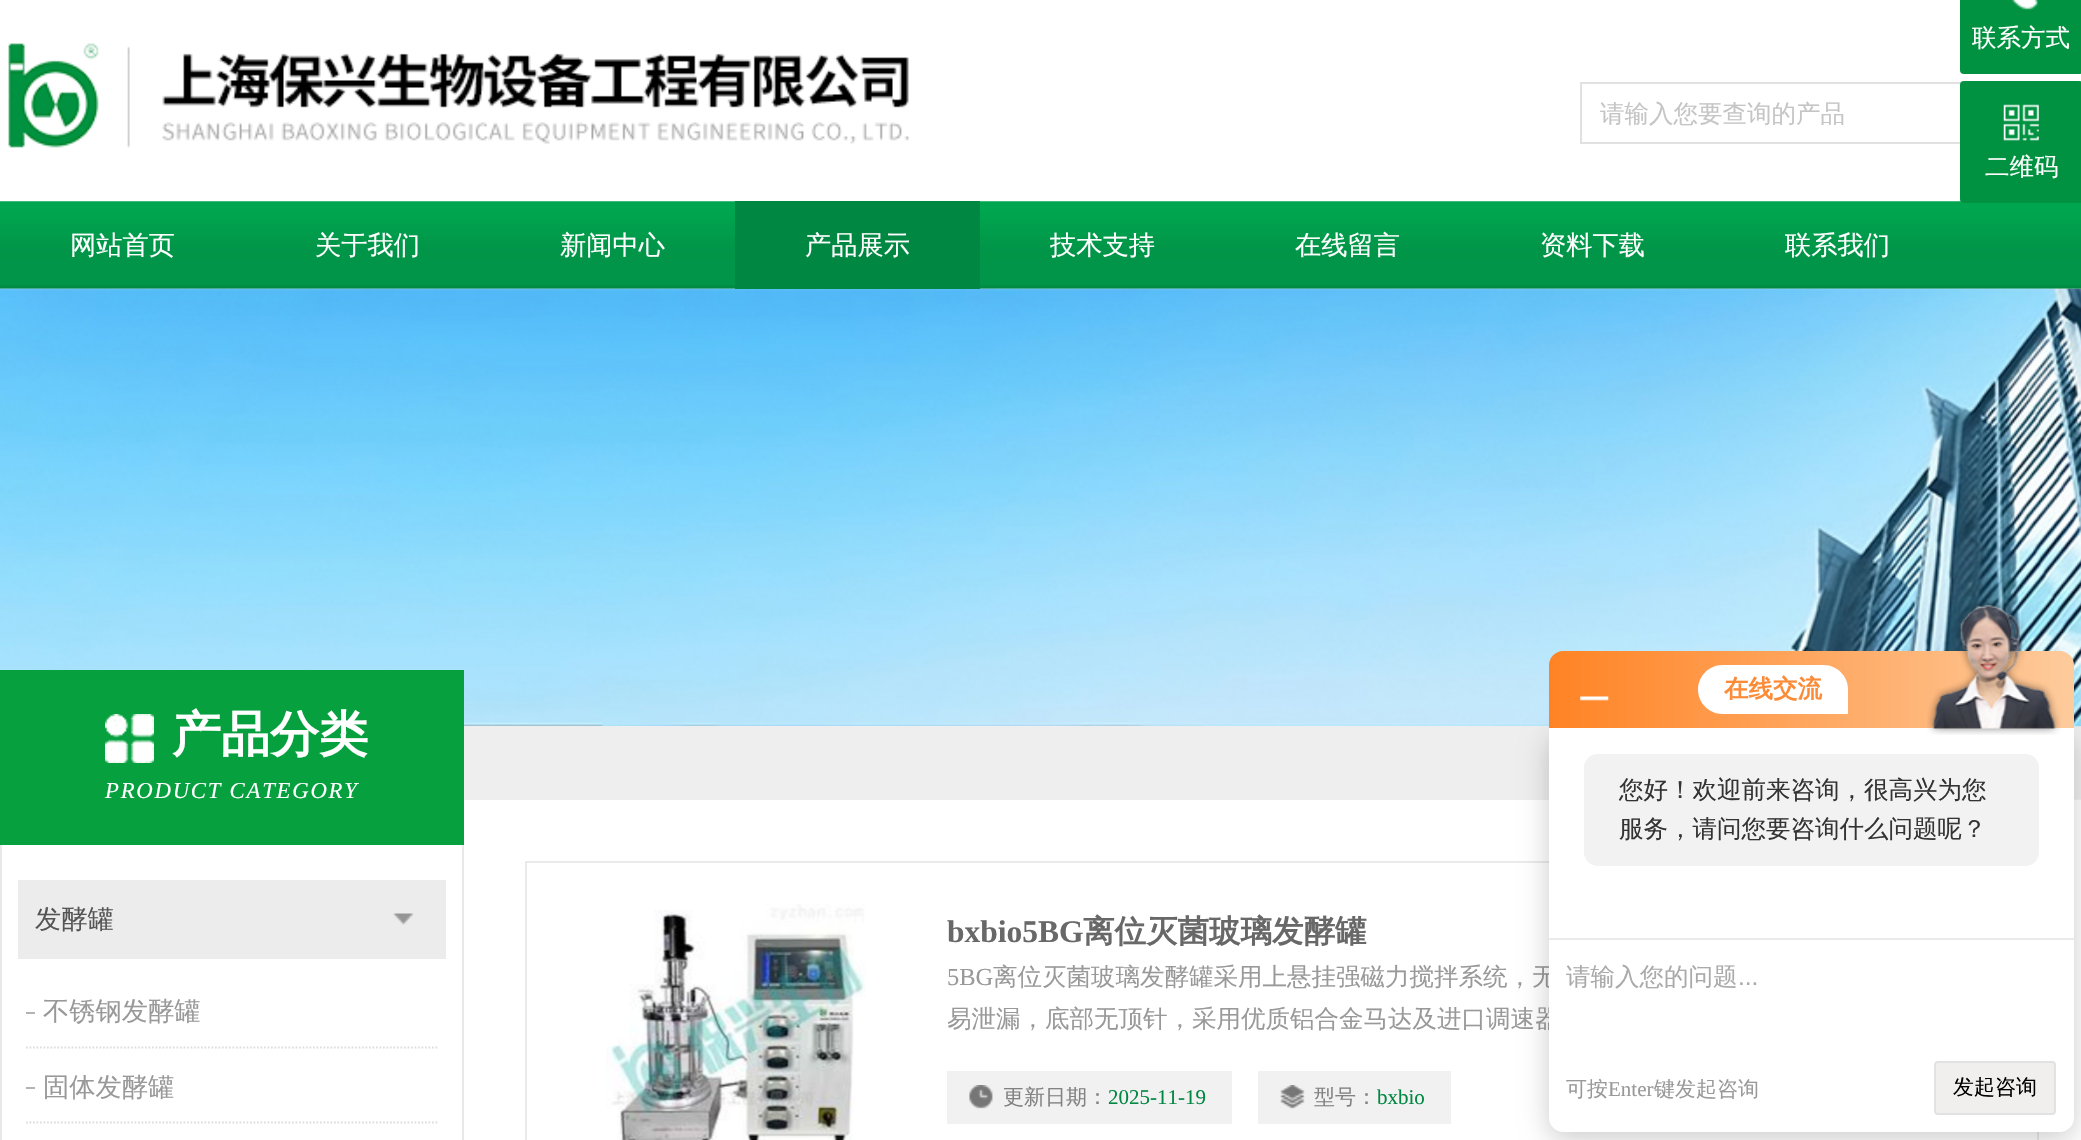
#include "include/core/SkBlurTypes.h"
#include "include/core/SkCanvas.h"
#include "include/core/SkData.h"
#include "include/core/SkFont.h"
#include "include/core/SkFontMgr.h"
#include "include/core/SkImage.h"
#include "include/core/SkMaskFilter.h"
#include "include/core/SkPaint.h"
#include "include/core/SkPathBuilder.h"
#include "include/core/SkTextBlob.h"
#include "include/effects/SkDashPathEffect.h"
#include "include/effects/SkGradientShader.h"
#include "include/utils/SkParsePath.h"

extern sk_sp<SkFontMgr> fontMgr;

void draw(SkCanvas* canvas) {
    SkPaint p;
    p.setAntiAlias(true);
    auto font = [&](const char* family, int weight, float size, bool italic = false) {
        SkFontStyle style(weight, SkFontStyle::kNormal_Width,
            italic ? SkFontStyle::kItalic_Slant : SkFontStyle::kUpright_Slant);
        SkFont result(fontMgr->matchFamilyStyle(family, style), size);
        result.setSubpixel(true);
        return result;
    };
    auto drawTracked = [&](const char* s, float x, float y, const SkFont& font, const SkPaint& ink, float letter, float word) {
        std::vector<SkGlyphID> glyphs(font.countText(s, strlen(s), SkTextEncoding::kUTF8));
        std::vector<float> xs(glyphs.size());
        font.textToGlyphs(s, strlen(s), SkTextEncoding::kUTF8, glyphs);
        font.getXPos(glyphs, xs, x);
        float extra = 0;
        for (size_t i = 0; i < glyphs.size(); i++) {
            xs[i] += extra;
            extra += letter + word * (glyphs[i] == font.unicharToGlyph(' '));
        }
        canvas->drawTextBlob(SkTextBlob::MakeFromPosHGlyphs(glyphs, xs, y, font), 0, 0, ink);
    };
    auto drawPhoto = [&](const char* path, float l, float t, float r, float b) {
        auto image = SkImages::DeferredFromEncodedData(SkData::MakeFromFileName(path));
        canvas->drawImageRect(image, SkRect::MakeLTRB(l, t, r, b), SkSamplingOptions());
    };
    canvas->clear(0xFFFFFFFF);
    drawPhoto("media/1.png", 2074, 726, 2081, 800);
    drawPhoto("media/2.png", 8, 43, 909, 148);
    {
        const struct { float l, t, r, b; SkColor color; } items[] = {
            {1580, 82, 1962, 84, 0xFFE1E1E1},
            {1580, 142, 1960, 144, 0xFFE1E1E1},
            {1580, 82, 1582, 144, 0xFFE1E1E1},
        };
        for (auto [l, t, r, b, color] : items) {
            p.setColor(color);
            canvas->drawRect(SkRect::MakeLTRB(l, t, r, b), p);
        }
    }
    auto font1 = font("WenQuanYi Zen Hei", 500, 24.5f);
    p.setColor(0xFFC5C5C5);
    canvas->drawString("请输入您要查询的产品", 1600, 122, font1, p);
    p.setColor(0xFF009240);
    canvas->drawRoundRect(SkRect::MakeLTRB(1960, -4, 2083, 74), 4, 4, p);
    drawPhoto("media/3.png", 2012, 0, 2038, 10);
    p.setColor(0xFFFFFFFF);
    canvas->drawString("联系方式", 1972, 46, font1, p);
    drawPhoto("media/5.png", 0, 201, 2081, 289);
    p.setColor(0xFF009240);
    canvas->drawRoundRect(SkRect::MakeLTRB(1960, 81, 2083, 203), 4, 4, p);
    drawPhoto("media/4.png", 2003, 104, 2039, 141);
    p.setColor(0xFFFFFFFF);
    canvas->drawString("二维码", 1985, 175, font1, p);
    auto font2 = font("WenQuanYi Zen Hei", 500, 26.25f);
    {
        const struct { const char* s; float x, y; } items[] = {
            {"网站首页", 70, 254},
            {"关于我们", 315, 254},
            {"新闻中心", 560, 254},
        };
        for (auto [s, x, y] : items) {
            canvas->drawString(s, x, y, font2, p);
        }
    }
    drawPhoto("media/6.png", 0, 288, 2081, 727);
    p.setColor(0xFF008742);
    canvas->drawRect(SkRect::MakeLTRB(735, 201, 980, 289), p);
    p.setColor(0xFFFFFFFF);
    {
        const struct { const char* s; float x, y; } items[] = {
            {"产品展示", 805, 254},
            {"技术支持", 1050, 254},
            {"在线留言", 1295, 254},
            {"资料下载", 1540, 254},
            {"联系我们", 1785, 254},
        };
        for (auto [s, x, y] : items) {
            canvas->drawString(s, x, y, font2, p);
        }
    }
    p.setColor(0xFF06A03E);
    canvas->drawRect(SkRect::MakeLTRB(0, 670, 464, 845), p);
    drawPhoto("media/7.png", 105, 714, 154, 763);
    auto font3 = font("WenQuanYi Zen Hei", 700, 49);
    p.setColor(0xFFFFFFFF);
    canvas->drawString("产品分类", 172, 751, font3, p);
    auto font4 = font("Liberation Serif", 400, 22.75f, true);
    drawTracked("PRODUCT CATEGORY", 105, 798, font4, p, 1.75f, 0);
    {
        const struct { float l, t, r, b; SkColor color; } items[] = {
            {462, 845, 464, 1140, 0xFFE8E8E8},
            {0, 845, 2, 1140, 0xFFE8E8E8},
            {18, 880, 446, 959, 0xFFECECEC},
        };
        for (auto [l, t, r, b, color] : items) {
            p.setColor(color);
            canvas->drawRect(SkRect::MakeLTRB(l, t, r, b), p);
        }
    }
    p.setColor(0xFF555555);
    canvas->drawString("发酵罐", 35, 928, font2, p);
    drawPhoto("media/8.png", 393, 913, 413, 925);
    p.setStyle(SkPaint::kStroke_Style);
    p.setStrokeWidth(1.8f);
    p.setColor(0xFFDEDEDE);
    p.setPathEffect(SkDashPathEffect::Make({{1.75f, 1.75f}}, 0));
    canvas->drawPath(SkPathBuilder().moveTo(26, 1047.5f).lineTo(437.5f, 1047.5f).detach(), p);
    p.setPathEffect(nullptr);
    p.setStyle(SkPaint::kFill_Style);
    p.setColor(0xFFB3B3B3);
    canvas->drawRect(SkRect::MakeLTRB(26, 1012, 35, 1014), p);
    p.setColor(0xFF999999);
    canvas->drawString("不锈钢发酵罐", 43, 1020, font2, p);
    p.setStyle(SkPaint::kStroke_Style);
    p.setColor(0xFFDEDEDE);
    p.setPathEffect(SkDashPathEffect::Make({{1.75f, 1.75f}}, 0));
    canvas->drawPath(SkPathBuilder().moveTo(26, 1122.5f).lineTo(437.5f, 1122.5f).detach(), p);
    p.setPathEffect(nullptr);
    p.setStyle(SkPaint::kFill_Style);
    p.setColor(0xFFB3B3B3);
    canvas->drawRect(SkRect::MakeLTRB(26, 1087, 35, 1089), p);
    p.setColor(0xFF999999);
    canvas->drawString("固体发酵罐", 43, 1096, font2, p);
    p.setColor(0xFFEEEEEE);
    canvas->drawRect(SkRect::MakeLTRB(464, 726, 1549, 800), p);
    p.setStyle(SkPaint::kStroke_Style);
    p.setStrokeWidth(2);
    p.setColor(0xFFEAEAEA);
    canvas->drawRect(SkRect::MakeLTRB(526, 862, 2038, 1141), p);
    drawPhoto("media/9.png", 606, 904, 866, 1140);
    auto font5 = font("Liberation Serif", 700, 31.5f);
    p.setStyle(SkPaint::kFill_Style);
    p.setColor(0xFF686868);
    canvas->drawString("bxbio5BG", 947, 942, font5, p);
    auto font6 = font("WenQuanYi Zen Hei", 700, 31.5f);
    canvas->drawString("离位灭菌玻璃发酵罐", 1083, 942, font6, p);
    auto font7 = font("Liberation Serif", 400, 24.5f);
    p.setColor(0xFF999999);
    canvas->drawString("5BG", 947, 985, font7, p);
    canvas->drawString("离位灭菌玻璃发酵罐采用上悬挂强磁力搅拌系统，无", 993, 985, font1, p);
    canvas->drawString("易泄漏，底部无顶针，采用优质铝合金马达及进口调速器", 947, 1027, font1, p);
    p.setColor(0xFFF1F1F1);
    canvas->drawRect(SkRect::MakeLTRB(947, 1071, 1232, 1124), p);
    drawPhoto("media/10.png", 969, 1085, 993, 1109);
    auto font8 = font("WenQuanYi Zen Hei", 500, 21);
    p.setColor(0xFF828282);
    canvas->drawString("更新日期：", 1003, 1104, font8, p);
    auto font9 = font("Liberation Serif", 400, 21);
    p.setColor(0xFF008742);
    canvas->drawString("2025-11-19", 1108, 1104, font9, p);
    p.setColor(0xFFF1F1F1);
    canvas->drawRect(SkRect::MakeLTRB(1258, 1071, 1451, 1124), p);
    drawPhoto("media/11.png", 1280, 1085, 1305, 1109);
    p.setColor(0xFF828282);
    canvas->drawString("型号：", 1314, 1104, font8, p);
    p.setColor(0xFF008742);
    canvas->drawString("bxbio", 1377, 1104, font9, p);
    p.setColor(0x33000000);
    p.setMaskFilter(SkMaskFilter::MakeBlur(kNormal_SkBlurStyle, 14));
    canvas->drawRoundRect(SkRect::MakeLTRB(1549, 735, 2074, 1139), 14, 14, p);
    p.setMaskFilter(nullptr);
    {
        const SkColor colors[] = {0xFFFF8324, 0xFFFECB9C};
        const float stops[] = {0, 1};
        const SkPoint ends[] = {{1549, 690}, {2074, 690}};
        p.setShader(SkGradientShader::MakeLinear(ends, colors, stops, 2, SkTileMode::kClamp));
        p.setAlpha(255);
    }
    canvas->drawPath(SkPathBuilder().moveTo(1563, 651).lineTo(2060, 651).cubicTo(2067.5f, 651, 2074, 657.5f, 2074, 665).lineTo(2074, 728).lineTo(1549, 728).lineTo(1549, 665).cubicTo(1549, 657.5f, 1555.5f, 651, 1563, 651).close().detach(), p);
    drawPhoto("media/12.png", 1580, 696, 1609, 701);
    p.setShader(nullptr);
    p.setColor(0xFFFFFFFF);
    canvas->drawPath(SkPathBuilder().moveTo(1722.5f, 665).lineTo(1823.5f, 665).cubicTo(1837, 665, 1848, 676, 1848, 689.5f).lineTo(1848, 714).lineTo(1722.5f, 714).cubicTo(1709, 714, 1698, 703, 1698, 689.5f).cubicTo(1698, 676, 1709, 665, 1722.5f, 665).close().detach(), p);
    auto font10 = font("WenQuanYi Zen Hei", 700, 24.5f);
    p.setColor(0xFFFB8B36);
    canvas->drawString("在线交流", 1724, 697, font10, p);
    p.setColor(0xFFFFFFFF);
    canvas->drawPath(SkPathBuilder().moveTo(1549, 728).lineTo(2074, 728).lineTo(2074, 1118).cubicTo(2074, 1125.5f, 2067.5f, 1132, 2060, 1132).lineTo(1563, 1132).cubicTo(1555.5f, 1132, 1549, 1125.5f, 1549, 1118).close().detach(), p);
    drawPhoto("media/13.png", 1927, 600, 2061, 735);
    p.setColor(0xFFF2F2F2);
    canvas->drawRoundRect(SkRect::MakeLTRB(1584, 754, 2039, 866), 14, 14, p);
    p.setColor(0xFF333333);
    canvas->drawString("您好！欢迎前来咨询，很高兴为您", 1619, 798, font1, p);
    canvas->drawString("服务，请问您要咨询什么问题呢？", 1619, 837, font1, p);
    p.setColor(0xFFEAEAEA);
    canvas->drawRect(SkRect::MakeLTRB(1549, 938, 2074, 940), p);
    p.setColor(0xFFAAAAAA);
    canvas->drawString("请输入您的问题", 1566, 985, font1, p);
    auto font11 = font("Liberation Sans", 400, 24.5f);
    canvas->drawString("...", 1738, 985, font11, p);
    p.setColor(0xFF999999);
    canvas->drawString("可按", 1566, 1096, font8, p);
    canvas->drawString("Enter", 1608, 1096, font9, p);
    canvas->drawString("键发起咨询", 1654, 1096, font8, p);
    p.setColor(0xFFF0EFED);
    canvas->drawRoundRect(SkRect::MakeLTRB(1935, 1062, 2055, 1114), 3, 3, p);
    p.setStyle(SkPaint::kStroke_Style);
    p.setColor(0xFFE2E2E2);
    canvas->drawRoundRect(SkRect::MakeLTRB(1935, 1062, 2055, 1114), 3, 3, p);
    p.setStyle(SkPaint::kFill_Style);
    p.setColor(0xFF000000);
    canvas->drawString("发起咨询", 1953, 1094, font8, p);
}
